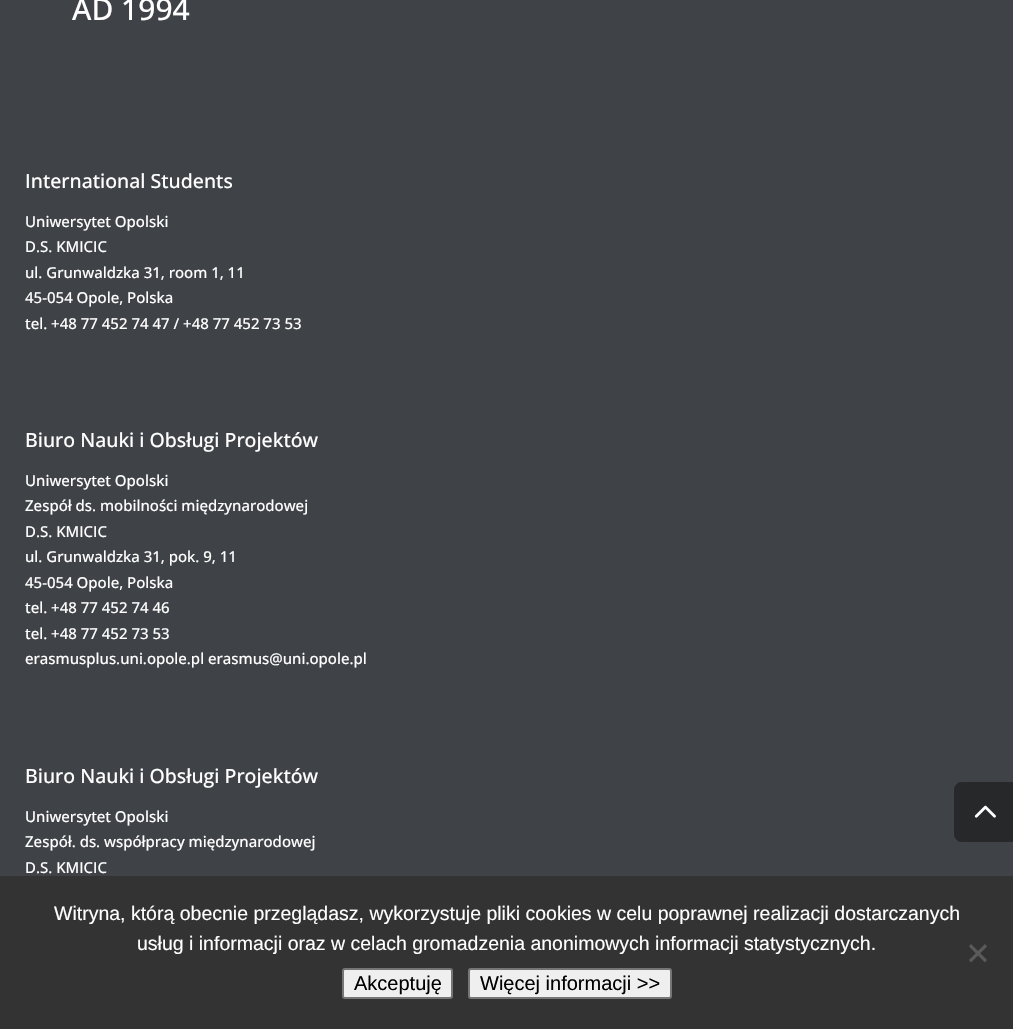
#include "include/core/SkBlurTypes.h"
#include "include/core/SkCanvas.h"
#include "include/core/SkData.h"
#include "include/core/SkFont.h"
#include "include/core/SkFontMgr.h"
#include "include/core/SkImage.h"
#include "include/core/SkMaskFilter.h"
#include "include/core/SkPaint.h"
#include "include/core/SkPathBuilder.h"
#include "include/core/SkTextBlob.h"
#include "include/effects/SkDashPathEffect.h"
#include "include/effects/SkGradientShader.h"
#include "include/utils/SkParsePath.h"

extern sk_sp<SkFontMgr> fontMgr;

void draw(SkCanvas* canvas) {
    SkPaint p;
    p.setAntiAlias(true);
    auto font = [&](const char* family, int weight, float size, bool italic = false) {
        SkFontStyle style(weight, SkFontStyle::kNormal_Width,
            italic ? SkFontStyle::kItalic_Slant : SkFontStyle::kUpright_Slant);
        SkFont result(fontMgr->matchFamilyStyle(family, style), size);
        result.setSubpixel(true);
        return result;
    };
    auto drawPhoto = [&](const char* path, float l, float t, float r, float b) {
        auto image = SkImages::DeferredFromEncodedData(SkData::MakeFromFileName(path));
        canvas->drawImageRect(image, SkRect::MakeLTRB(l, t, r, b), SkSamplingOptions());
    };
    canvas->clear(0xFF3F4246);
    auto font1 = font("Open Sans", 500, 30);
    p.setColor(0xFFFFFFFF);
    canvas->drawString("AD 1994", 72, 20, font1, p);
    auto font2 = font("Open Sans", 500, 19.5f);
    canvas->drawString("International Students", 25, 188, font2, p);
    auto font3 = font("Open Sans", 500, 15);
    {
        const struct { const char* s; float x, y; } items[] = {
            {"Uniwersytet Opolski", 25, 227},
            {"D.S. KMICIC", 25, 252},
            {"ul. Grunwaldzka 31, room 1, 11", 25, 278},
            {"45-054 Opole, Polska", 25, 303},
            {"tel. +48 77 452 74 47 / +48 77 452 73 53", 25, 329},
        };
        for (auto [s, x, y] : items) {
            canvas->drawString(s, x, y, font3, p);
        }
    }
    canvas->drawString("Biuro Nauki i Obsługi Projektów", 25, 447, font2, p);
    {
        const struct { const char* s; float x, y; } items[] = {
            {"Uniwersytet Opolski", 25, 486},
            {"Zespół ds. mobilności międzynarodowej", 25, 511},
            {"D.S. KMICIC", 25, 537},
            {"ul. Grunwaldzka 31, pok. 9, 11", 25, 562},
            {"45-054 Opole, Polska", 25, 588},
            {"tel. +48 77 452 74 46", 25, 613},
            {"tel. +48 77 452 73 53", 25, 639},
            {"erasmusplus.uni.opole.pl erasmus@uni.opole.pl", 25, 664},
        };
        for (auto [s, x, y] : items) {
            canvas->drawString(s, x, y, font3, p);
        }
    }
    canvas->drawString("Biuro Nauki i Obsługi Projektów", 25, 783, font2, p);
    {
        const struct { const char* s; float x, y; } items[] = {
            {"Uniwersytet Opolski", 25, 822},
            {"Zespół. ds. współpracy międzynarodowej", 25, 847},
            {"D.S. KMICIC", 25, 873},
        };
        for (auto [s, x, y] : items) {
            canvas->drawString(s, x, y, font3, p);
        }
    }
    p.setColor(0xFF26282A);
    canvas->drawPath(SkPathBuilder().moveTo(962, 782).lineTo(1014, 782).lineTo(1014, 842).lineTo(962, 842).cubicTo(957.5f, 842, 954, 838.5f, 954, 834).lineTo(954, 790).cubicTo(954, 785.5f, 957.5f, 782, 962, 782).close().detach(), p);
    drawPhoto("media/1.png", 974, 805, 996, 818);
    p.setColor(0xFF333333);
    canvas->drawRect(SkRect::MakeLTRB(0, 876, 1013, 1029), p);
    auto font4 = font("Liberation Sans", 400, 19.5f);
    p.setColor(0xFFFFFFFF);
    canvas->drawString("Witryna, którą obecnie przeglądasz, wykorzystuje pliki cookies w celu poprawnej realizacji dostarczanych", 54, 920, font4, p);
    canvas->drawString("usług i informacji oraz w celach gromadzenia anonimowych informacji statystycznych.", 137, 950, font4, p);
    p.setColor(0xFF5A5A5A);
    canvas->drawPath(SkPathBuilder().moveTo(985, 944).lineTo(987, 946.5f).lineTo(971, 962.5f).lineTo(969, 960).close().detach(), p);
    canvas->drawPath(SkPathBuilder().moveTo(969, 946.5f).lineTo(971, 944).lineTo(987, 960).lineTo(985, 962.5f).close().detach(), p);
    p.setColor(0xFFEFEFEF);
    canvas->drawRoundRect(SkRect::MakeLTRB(343, 969, 452, 998), 2, 2, p);
    p.setStyle(SkPaint::kStroke_Style);
    p.setStrokeWidth(2);
    p.setColor(0xFF767676);
    canvas->drawRoundRect(SkRect::MakeLTRB(343, 969, 452, 998), 2, 2, p);
    auto font5 = font("Liberation Sans", 400, 20);
    p.setStyle(SkPaint::kFill_Style);
    p.setColor(0xFF000000);
    canvas->drawString("Akceptuję", 354, 990, font5, p);
    p.setColor(0xFFEFEFEF);
    canvas->drawRoundRect(SkRect::MakeLTRB(469, 969, 671, 998), 2, 2, p);
    p.setStyle(SkPaint::kStroke_Style);
    p.setColor(0xFF767676);
    canvas->drawRoundRect(SkRect::MakeLTRB(469, 969, 671, 998), 2, 2, p);
    p.setStyle(SkPaint::kFill_Style);
    p.setColor(0xFF000000);
    canvas->drawString("Więcej informacji >>", 480, 990, font5, p);
}
